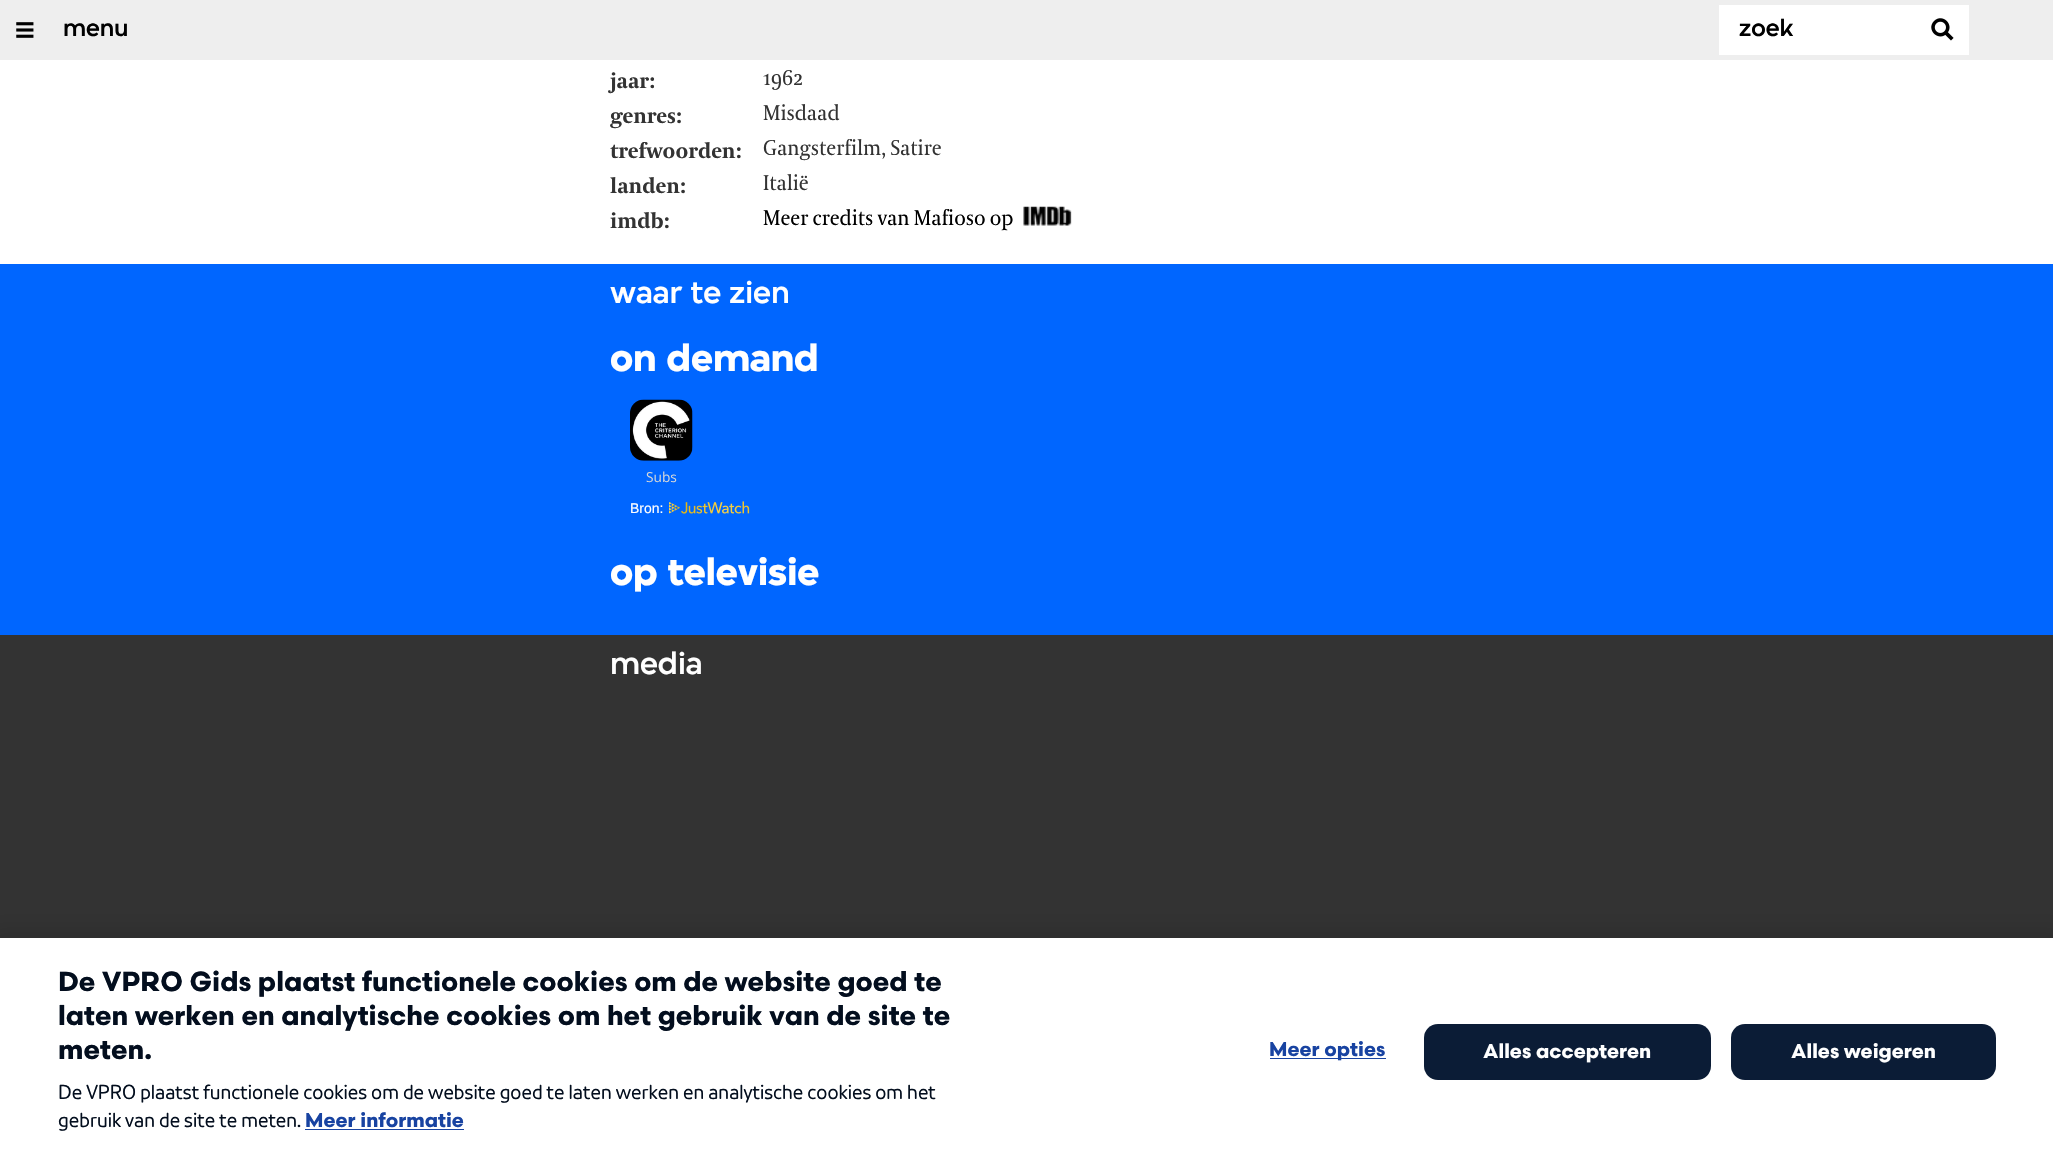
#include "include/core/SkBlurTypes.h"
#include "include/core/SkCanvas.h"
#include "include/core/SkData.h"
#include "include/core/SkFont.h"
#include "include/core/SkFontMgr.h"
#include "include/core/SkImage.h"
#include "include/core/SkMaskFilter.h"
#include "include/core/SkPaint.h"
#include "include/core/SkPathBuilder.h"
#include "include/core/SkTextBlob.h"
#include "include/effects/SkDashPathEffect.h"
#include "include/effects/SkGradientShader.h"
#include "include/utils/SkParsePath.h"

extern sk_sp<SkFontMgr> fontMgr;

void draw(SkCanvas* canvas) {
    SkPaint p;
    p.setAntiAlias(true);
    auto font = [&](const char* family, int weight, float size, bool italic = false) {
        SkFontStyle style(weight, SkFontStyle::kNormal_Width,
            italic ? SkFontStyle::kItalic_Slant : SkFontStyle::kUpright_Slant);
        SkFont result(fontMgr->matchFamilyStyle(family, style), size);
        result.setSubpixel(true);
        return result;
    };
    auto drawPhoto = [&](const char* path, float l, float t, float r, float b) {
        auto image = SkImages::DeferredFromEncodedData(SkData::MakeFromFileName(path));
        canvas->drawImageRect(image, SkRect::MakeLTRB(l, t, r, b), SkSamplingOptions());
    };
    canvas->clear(0xFFFFFFFF);
    p.setColor(0xFFEEEEEE);
    canvas->drawRect(SkRect::MakeLTRB(0, 0, 2053, 60), p);
    drawPhoto("media/1.png", 16, 22, 34, 38);
    auto font1 = font("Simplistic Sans", 500, 25);
    p.setColor(0xFF000000);
    canvas->drawString("menu", 63, 36, font1, p);
    p.setColor(0xFFFFFFFF);
    canvas->drawRect(SkRect::MakeLTRB(1719, 5, 1969, 55), p);
    p.setColor(0xFF000000);
    canvas->drawString("zoek", 1739, 36, font1, p);
    drawPhoto("media/2.png", 1931, 18, 1954, 41);
    auto font2 = font("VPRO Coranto", 700, 21.25f);
    p.setColor(0xFF333333);
    canvas->drawString("jaar:", 610, 88, font2, p);
    auto font3 = font("VPRO Coranto", 400, 21.25f);
    canvas->drawString("1962", 763, 85, font3, p);
    canvas->drawString("genres:", 610, 123, font2, p);
    canvas->drawString("Misdaad", 763, 120, font3, p);
    canvas->drawString("trefwoorden:", 610, 158, font2, p);
    canvas->drawString("Gangsterfilm, Satire", 763, 155, font3, p);
    canvas->drawString("landen:", 610, 193, font2, p);
    canvas->drawString("Italië", 763, 190, font3, p);
    canvas->drawString("imdb:", 610, 228, font2, p);
    p.setColor(0xFF000000);
    canvas->drawString("Meer credits van Mafioso op", 763, 225, font3, p);
    drawPhoto("media/3.png", 1023, 206, 1072, 226);
    p.setColor(0xFF0066FF);
    canvas->drawRect(SkRect::MakeLTRB(0, 264, 2053, 635), p);
    auto font4 = font("Simplistic Sans", 500, 32.5f);
    p.setColor(0xFFFFFFFF);
    canvas->drawString("waar te zien", 610, 303, font4, p);
    auto font5 = font("Simplistic Sans", 700, 40);
    canvas->drawString("on demand", 610, 371, font5, p);
    drawPhoto("media/4.png", 630, 399, 693, 483);
    auto font6 = font("Liberation Sans", 400, 14);
    canvas->drawString("Bron:", 630, 513, font6, p);
    drawPhoto("media/5.png", 669, 501, 750, 514);
    canvas->drawString("op televisie", 610, 585, font5, p);
    p.setColor(0xFF333333);
    canvas->drawRect(SkRect::MakeLTRB(0, 635, 2053, 938), p);
    p.setColor(0xFFFFFFFF);
    canvas->drawString("media", 610, 674, font4, p);
    p.setColor(0x1A000000);
    p.setMaskFilter(SkMaskFilter::MakeBlur(kNormal_SkBlurStyle, 9.5f));
    canvas->drawRect(SkRect::MakeLTRB(-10, 928, 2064, 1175), p);
    p.setMaskFilter(nullptr);
    p.setColor(0xFFFFFFFF);
    canvas->drawRect(SkRect::MakeLTRB(0, 938, 2053, 1164), p);
    auto font7 = font("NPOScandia", 700, 27.5f);
    p.setColor(0xFF030E1E);
    {
        const struct { const char* s; float x, y; } items[] = {
            {"De VPRO Gids plaatst functionele cookies om de website goed te", 58, 991},
            {"laten werken en analytische cookies om het gebruik van de site te", 58, 1025},
            {"meten.", 58, 1059},
        };
        for (auto [s, x, y] : items) {
            canvas->drawString(s, x, y, font7, p);
        }
    }
    auto font8 = font("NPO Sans", 400, 20);
    canvas->drawString("De VPRO plaatst functionele cookies om de website goed te laten werken en analytische cookies om het", 58, 1099, font8, p);
    canvas->drawString("gebruik van de site te meten.", 58, 1127, font8, p);
    auto font9 = font("NPOScandia", 700, 20);
    p.setColor(0xFF1843A1);
    canvas->drawString("Meer informatie", 305, 1127, font9, p);
    canvas->drawRect(SkRect::MakeLTRB(305, 1129, 464, 1130), p);
    canvas->drawRect(SkRect::MakeLTRB(1270, 1058, 1386, 1059), p);
    canvas->drawString("Meer opties", 1269, 1056, font9, p);
    p.setColor(0xFF0B1C36);
    canvas->drawRoundRect(SkRect::MakeLTRB(1424, 1024, 1711, 1080), 14, 14, p);
    p.setColor(0xFFFFFFFF);
    canvas->drawString("Alles accepteren", 1483, 1058, font9, p);
    p.setColor(0xFF0B1C36);
    canvas->drawRoundRect(SkRect::MakeLTRB(1731, 1024, 1996, 1080), 14, 14, p);
    p.setColor(0xFFFFFFFF);
    canvas->drawString("Alles weigeren", 1791, 1058, font9, p);
}
